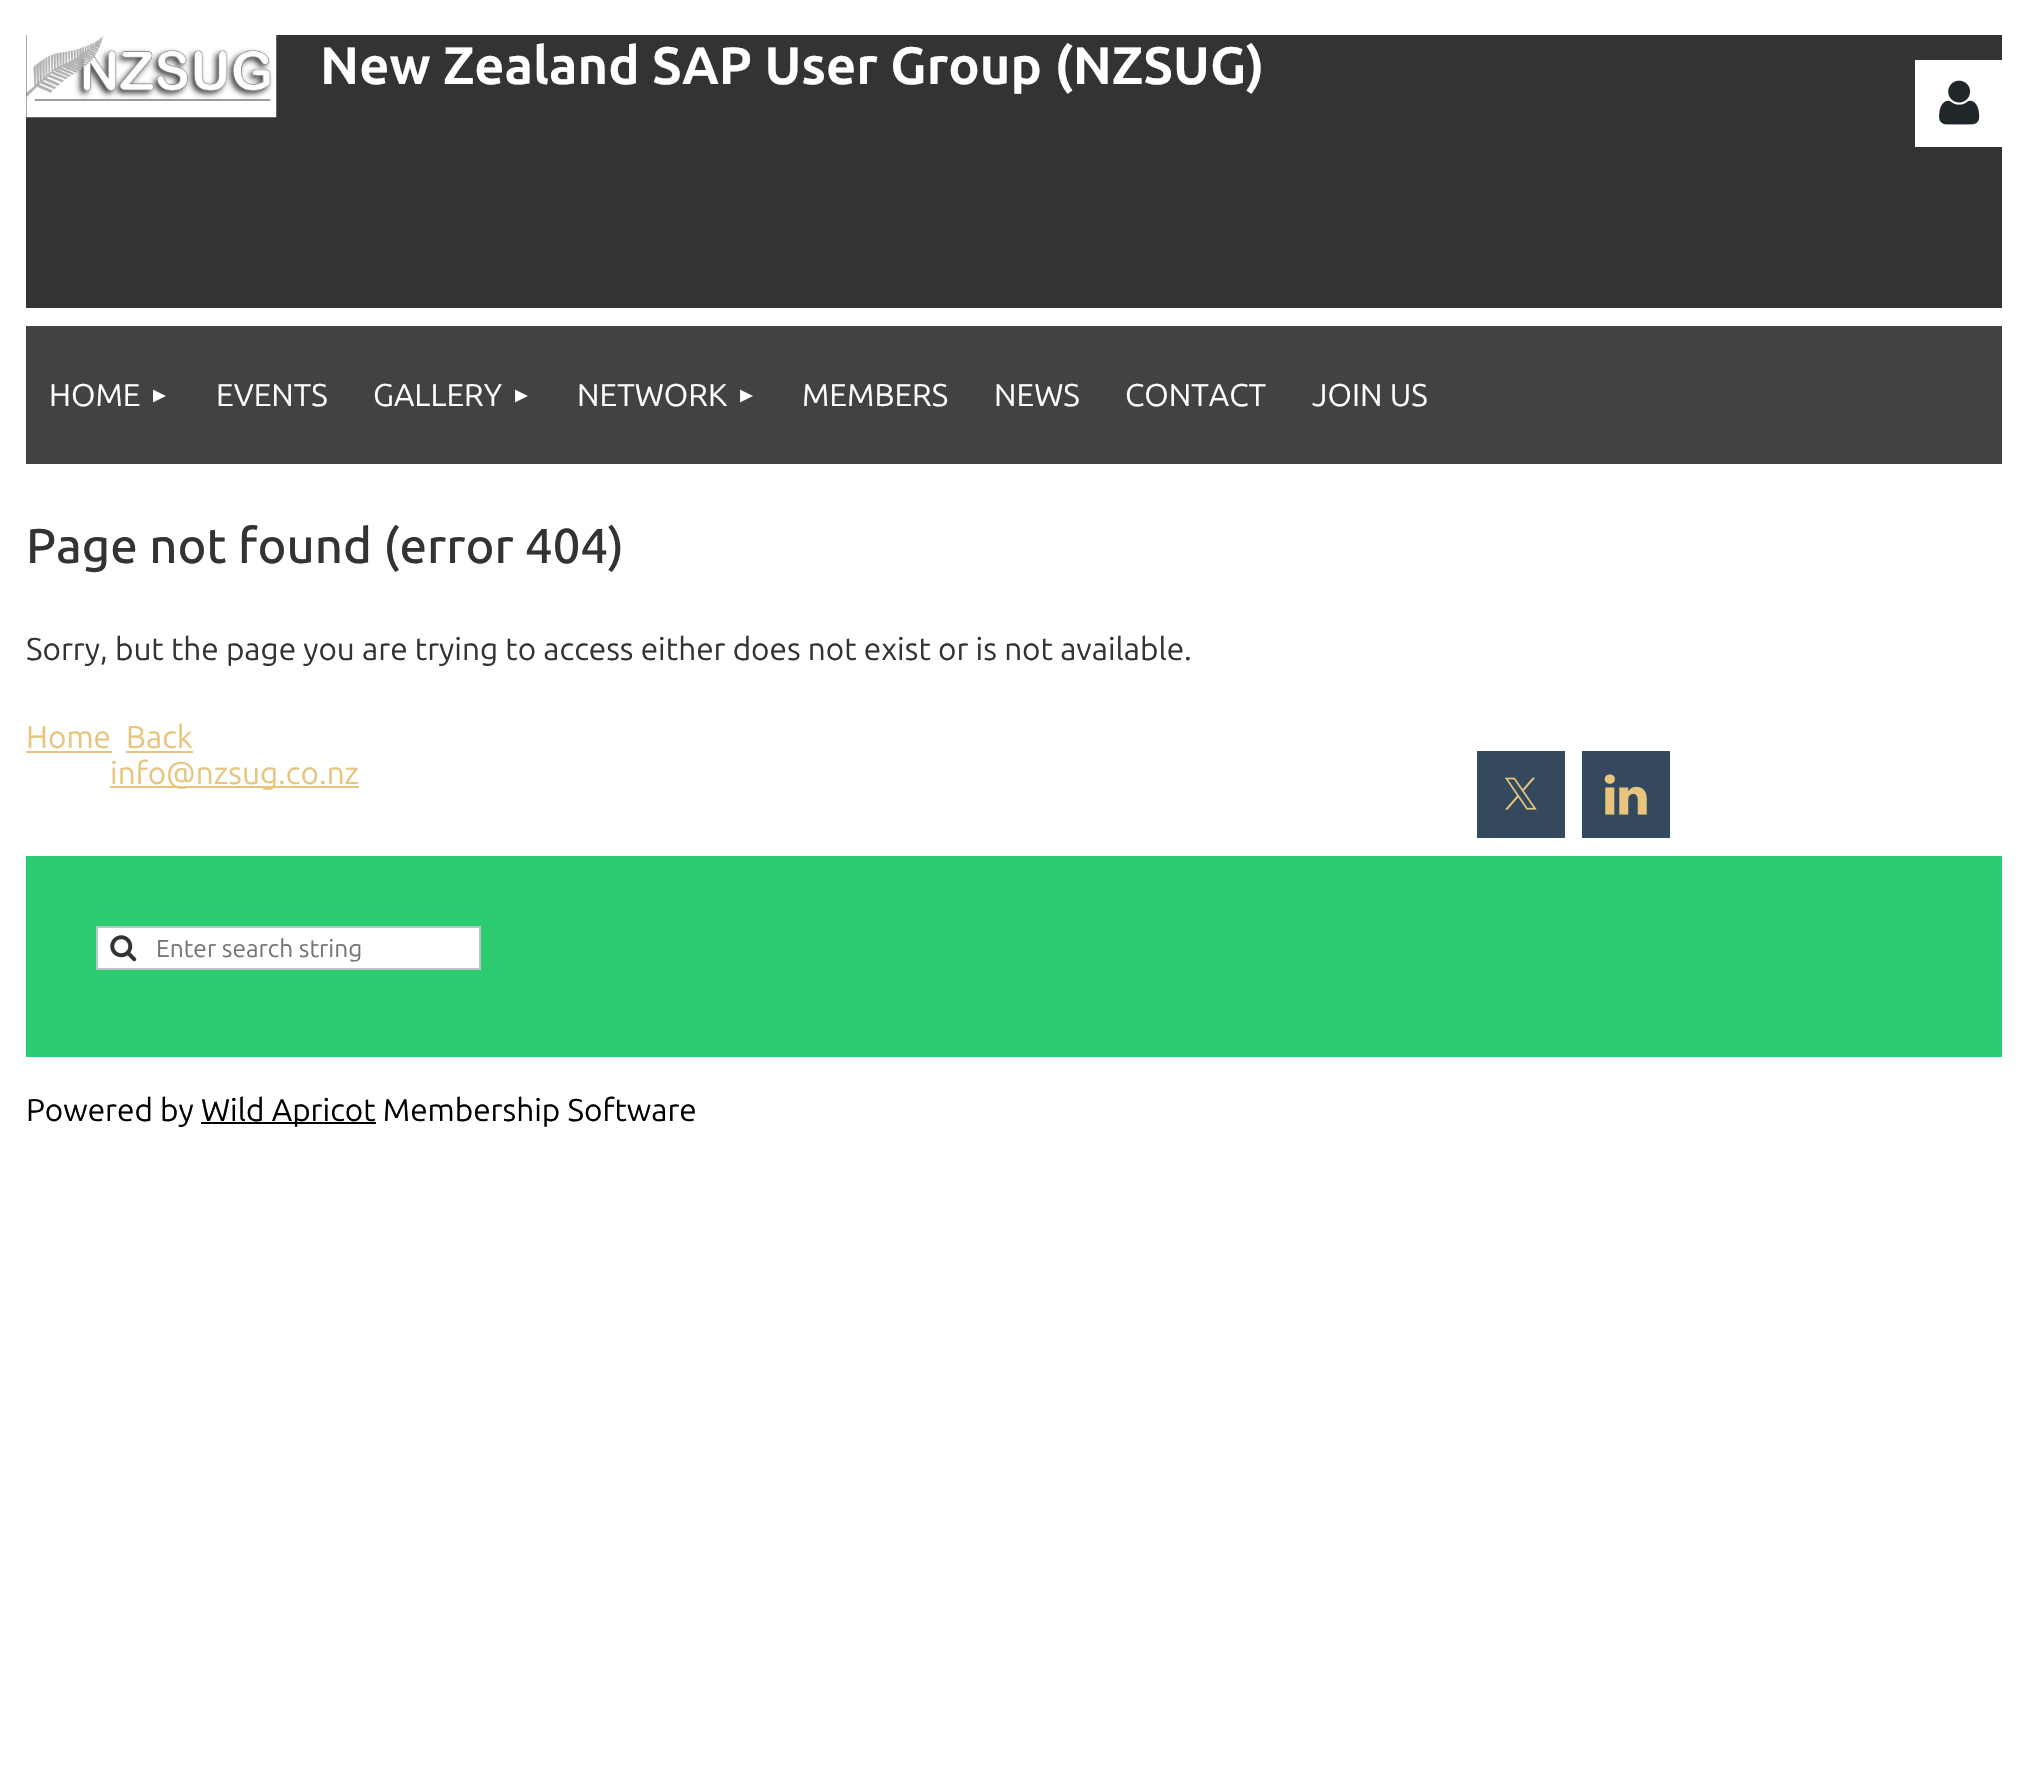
#include "include/core/SkBlurTypes.h"
#include "include/core/SkCanvas.h"
#include "include/core/SkData.h"
#include "include/core/SkFont.h"
#include "include/core/SkFontMgr.h"
#include "include/core/SkImage.h"
#include "include/core/SkMaskFilter.h"
#include "include/core/SkPaint.h"
#include "include/core/SkPathBuilder.h"
#include "include/core/SkTextBlob.h"
#include "include/effects/SkDashPathEffect.h"
#include "include/effects/SkGradientShader.h"
#include "include/utils/SkParsePath.h"

extern sk_sp<SkFontMgr> fontMgr;

void draw(SkCanvas* canvas) {
    SkPaint p;
    p.setAntiAlias(true);
    auto font = [&](const char* family, int weight, float size, bool italic = false) {
        SkFontStyle style(weight, SkFontStyle::kNormal_Width,
            italic ? SkFontStyle::kItalic_Slant : SkFontStyle::kUpright_Slant);
        SkFont result(fontMgr->matchFamilyStyle(family, style), size);
        result.setSubpixel(true);
        return result;
    };
    auto drawPhoto = [&](const char* path, float l, float t, float r, float b) {
        auto image = SkImages::DeferredFromEncodedData(SkData::MakeFromFileName(path));
        canvas->drawImageRect(image, SkRect::MakeLTRB(l, t, r, b), SkSamplingOptions());
    };
    canvas->clear(0xFFFFFFFF);
    p.setColor(0xFF333333);
    canvas->drawRect(SkRect::MakeLTRB(26, 35, 2002, 308), p);
    drawPhoto("media/1.png", 26, 35, 277, 118);
    auto font1 = font("Ubuntu", 700, 52.5f);
    p.setColor(0xFFFFFFFF);
    canvas->drawString("New Zealand SAP User Group (NZSUG)", 320, 84, font1, p);
    canvas->drawRect(SkRect::MakeLTRB(1915, 60, 2002, 147), p);
    drawPhoto("media/2.png", 1939, 80, 1980, 125);
    p.setColor(0xFF424242);
    canvas->drawRect(SkRect::MakeLTRB(26, 326, 2002, 464), p);
    auto font2 = font("Ubuntu", 400, 31.5f);
    p.setColor(0xFFFFFFFF);
    canvas->drawString("HOME", 49, 406, font2, p);
    auto font3 = font("Liberation Sans", 400, 21);
    canvas->drawString("►", 149, 402, font3, p);
    canvas->drawString("EVENTS", 216, 406, font2, p);
    canvas->drawString("GALLERY", 373, 406, font2, p);
    canvas->drawString("►", 511, 402, font3, p);
    canvas->drawString("NETWORK", 577, 406, font2, p);
    canvas->drawString("►", 736, 402, font3, p);
    {
        const struct { const char* s; float x, y; } items[] = {
            {"MEMBERS", 802, 406},
            {"NEWS", 994, 406},
            {"CONTACT", 1125, 406},
            {"JOIN US", 1312, 406},
        };
        for (auto [s, x, y] : items) {
            canvas->drawString(s, x, y, font2, p);
        }
    }
    auto font4 = font("Ubuntu", 500, 49);
    p.setColor(0xFF333333);
    canvas->drawString("Page not found (error 404)", 26, 563, font4, p);
    canvas->drawString("Sorry, but the page you are trying to access either does not exist or is not available.", 26, 660, font2, p);
    p.setColor(0xFFE7C57F);
    canvas->drawString("Home", 26, 748, font2, p);
    canvas->drawRect(SkRect::MakeLTRB(26, 751, 112, 753), p);
    canvas->drawString("Back", 126, 748, font2, p);
    canvas->drawRect(SkRect::MakeLTRB(126, 751, 193, 753), p);
    canvas->drawRect(SkRect::MakeLTRB(110, 786, 359, 788), p);
    canvas->drawString("info@nzsug.co.nz", 110, 784, font2, p);
    p.setColor(0xFF34495E);
    canvas->drawRect(SkRect::MakeLTRB(1477, 751, 1565, 838), p);
    drawPhoto("media/3.png", 1504, 777, 1537, 810);
    canvas->drawRect(SkRect::MakeLTRB(1582, 751, 1670, 838), p);
    drawPhoto("media/4.png", 1604, 774, 1647, 815);
    p.setColor(0xFF2ECC71);
    canvas->drawRect(SkRect::MakeLTRB(26, 856, 2002, 1057), p);
    p.setColor(0xFFFFFFFF);
    canvas->drawRect(SkRect::MakeLTRB(97, 927, 480, 969), p);
    p.setStyle(SkPaint::kStroke_Style);
    p.setStrokeWidth(2);
    p.setColor(0xFFB8C6CD);
    canvas->drawRect(SkRect::MakeLTRB(97, 927, 480, 969), p);
    drawPhoto("media/5.png", 110, 935, 137, 962);
    auto font5 = font("Ubuntu", 400, 24.5f);
    p.setStyle(SkPaint::kFill_Style);
    p.setColor(0xFF757575);
    canvas->drawString("Enter search string", 156, 957, font5, p);
    p.setColor(0xFF000000);
    canvas->drawString("Powered by", 26, 1121, font2, p);
    canvas->drawRect(SkRect::MakeLTRB(201, 1122, 376, 1124), p);
    canvas->drawString("Wild Apricot Membership Software", 201, 1121, font2, p);
}
